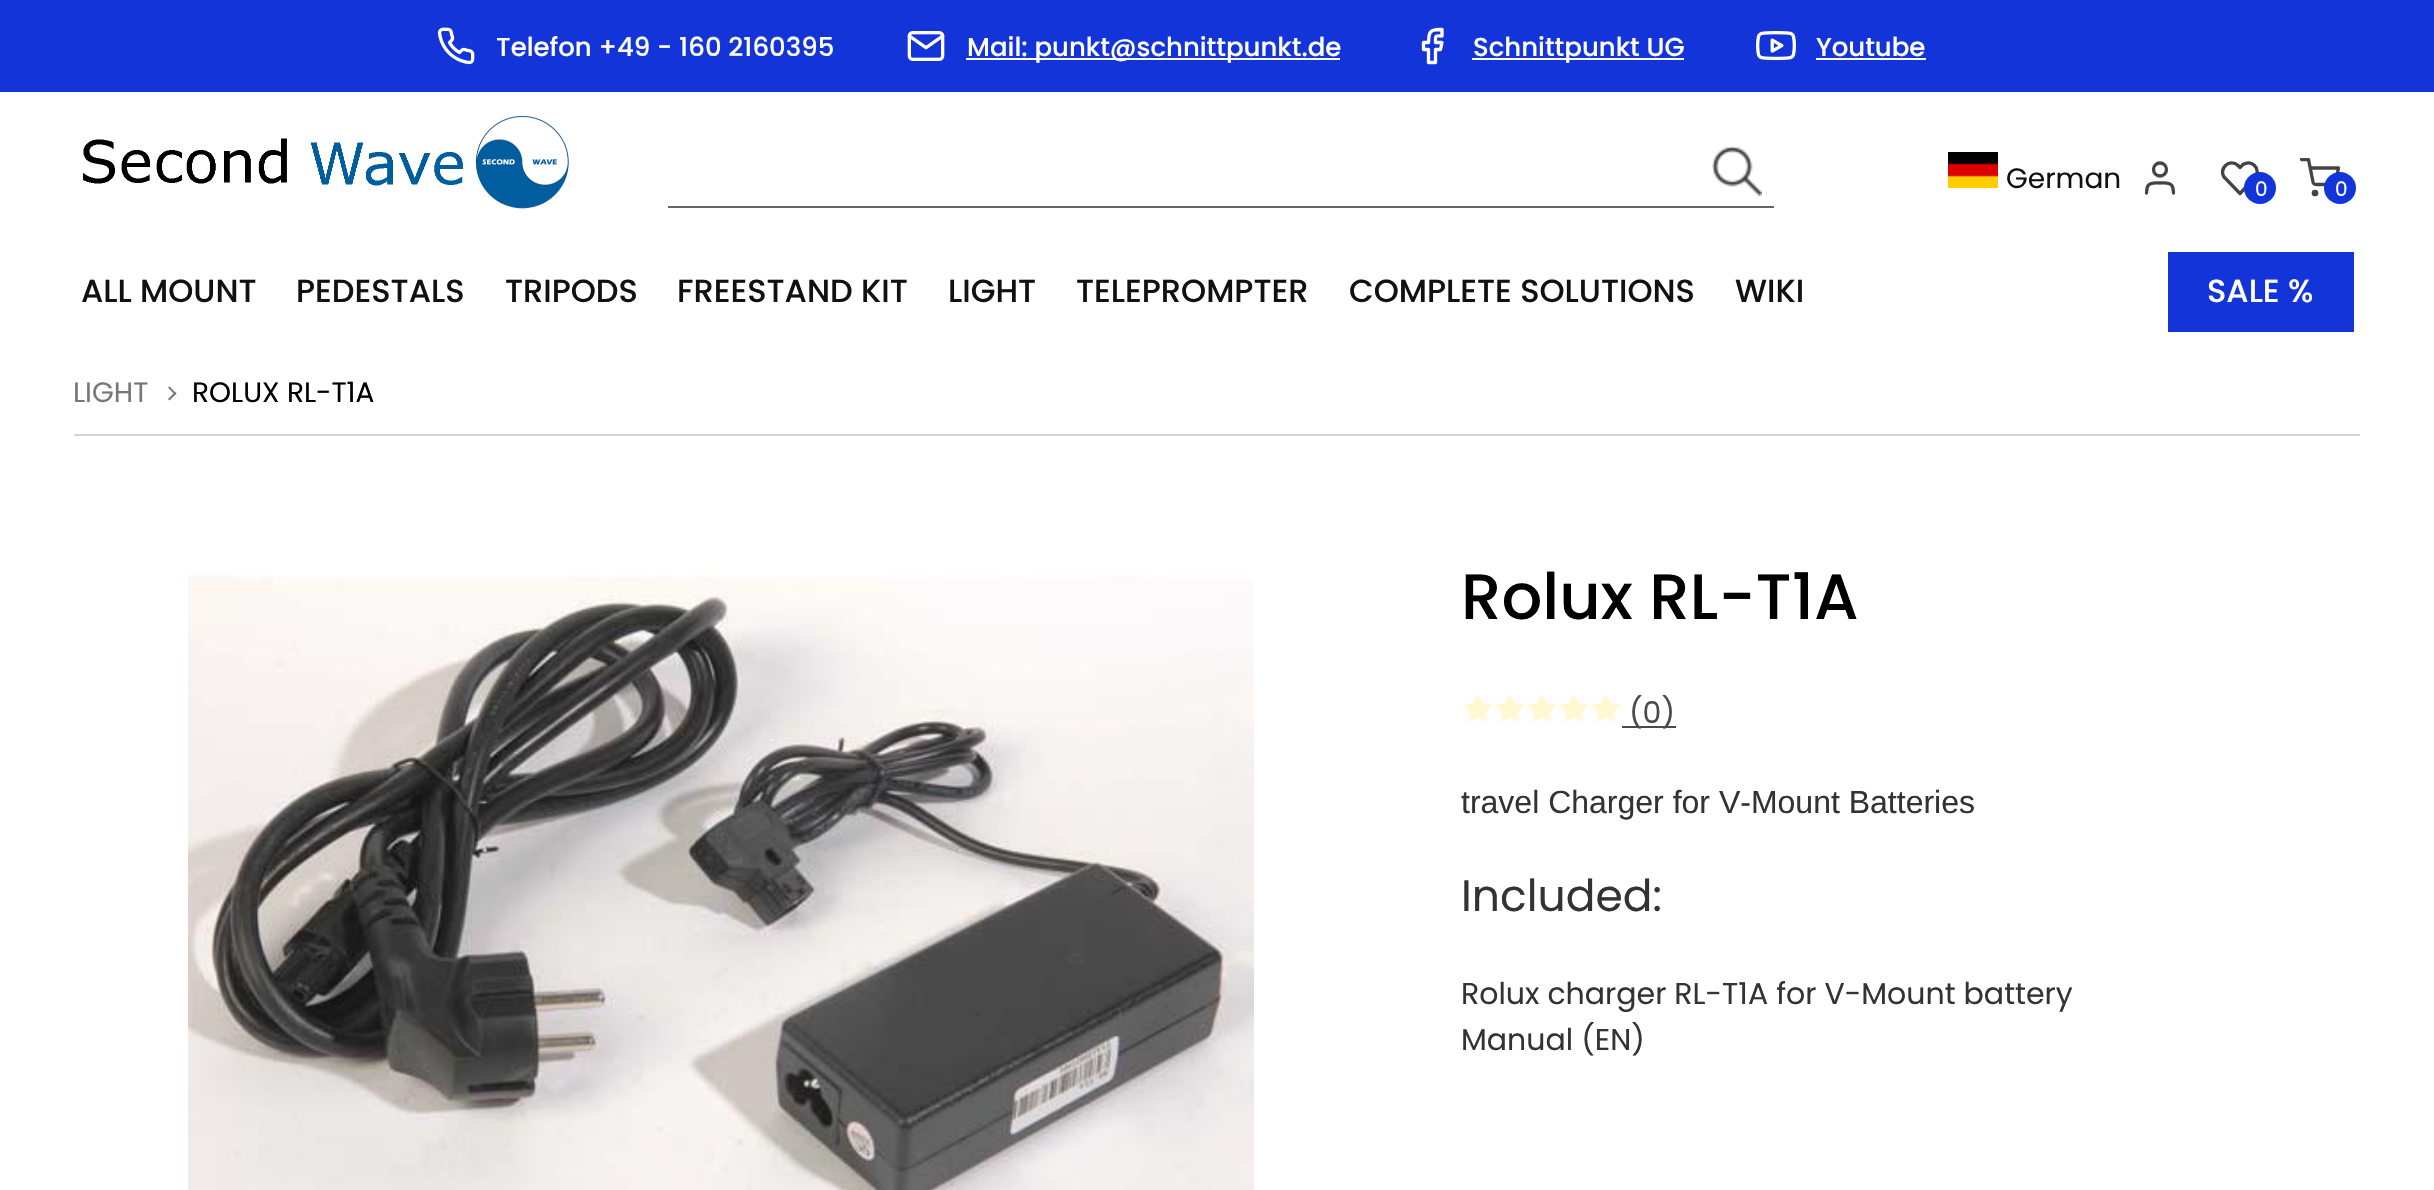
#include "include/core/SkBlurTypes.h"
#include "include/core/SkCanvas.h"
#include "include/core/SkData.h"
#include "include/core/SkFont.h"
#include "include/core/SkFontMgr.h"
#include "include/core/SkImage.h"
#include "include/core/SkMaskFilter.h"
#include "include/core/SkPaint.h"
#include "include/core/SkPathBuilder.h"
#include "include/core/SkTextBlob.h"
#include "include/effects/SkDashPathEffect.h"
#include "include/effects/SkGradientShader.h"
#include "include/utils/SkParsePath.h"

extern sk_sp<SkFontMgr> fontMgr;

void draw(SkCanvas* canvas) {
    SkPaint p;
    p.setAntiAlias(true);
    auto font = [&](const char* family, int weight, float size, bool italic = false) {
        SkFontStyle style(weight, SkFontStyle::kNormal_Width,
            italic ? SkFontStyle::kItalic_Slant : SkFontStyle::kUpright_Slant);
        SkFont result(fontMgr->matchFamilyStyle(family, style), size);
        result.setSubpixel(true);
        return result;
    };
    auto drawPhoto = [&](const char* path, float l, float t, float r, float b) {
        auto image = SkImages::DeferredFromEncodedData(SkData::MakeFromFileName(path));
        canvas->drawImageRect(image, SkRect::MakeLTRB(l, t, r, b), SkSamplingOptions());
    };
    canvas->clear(0xFFFFFFFF);
    p.setColor(0xFF1334D8);
    canvas->drawRect(SkRect::MakeLTRB(0, 0, 2434, 92), p);
    drawPhoto("media/1.png", 437, 27, 475, 65);
    auto font1 = font("Poppins", 500, 26);
    p.setColor(0xFFFFFFFF);
    canvas->drawString("Telefon +49 - 160 2160395", 496, 56, font1, p);
    drawPhoto("media/2.png", 907, 31, 945, 61);
    canvas->drawRect(SkRect::MakeLTRB(966, 58, 1340, 60), p);
    canvas->drawString("Mail: punkt@schnittpunkt.de", 967, 56, font1, p);
    p.setStyle(SkPaint::kStroke_Style);
    p.setStrokeWidth(3.3f);
    p.setStrokeCap(SkPaint::kRound_Cap);
    p.setStrokeJoin(SkPaint::kRound_Join);
    canvas->drawPath(SkPathBuilder().moveTo(1442, 29.5f).cubicTo(1436.5f, 29.5f, 1430, 29, 1429, 36).lineTo(1428.5f, 42.5f).lineTo(1423.5f, 42.5f).lineTo(1423.5f, 49.5f).lineTo(1428.5f, 49.5f).lineTo(1428.5f, 62.5f).lineTo(1435.5f, 62.5f).lineTo(1435.5f, 49.5f).lineTo(1440.5f, 49.5f).lineTo(1442, 42.5f).lineTo(1435.5f, 42.5f).cubicTo(1435.5f, 35, 1434.5f, 36, 1442, 36).close().detach(), p);
    p.setStyle(SkPaint::kFill_Style);
    canvas->drawRect(SkRect::MakeLTRB(1472, 58, 1684, 60), p);
    canvas->drawString("Schnittpunkt UG", 1473, 56, font1, p);
    drawPhoto("media/3.png", 1756, 31, 1796, 61);
    canvas->drawString("Youtube", 1816, 56, font1, p);
    canvas->drawRect(SkRect::MakeLTRB(1816, 58, 1926, 60), p);
    drawPhoto("media/4.png", 83, 115, 569, 209);
    drawPhoto("media/5.png", 1712, 146, 1762, 196);
    p.setColor(0xFF666666);
    canvas->drawRect(SkRect::MakeLTRB(668, 206, 1774, 208), p);
    drawPhoto("media/6.png", 1948, 152, 1998, 188);
    auto font2 = font("Poppins", 400, 28);
    p.setColor(0xFF111111);
    canvas->drawString("German", 2006, 188, font2, p);
    p.setStyle(SkPaint::kStroke_Style);
    p.setStrokeCap(SkPaint::kButt_Cap);
    p.setStrokeJoin(SkPaint::kMiter_Join);
    p.setColor(0xFF444444);
    canvas->drawCircle(2160, 169.5f, 6.5f, p);
    p.setStrokeCap(SkPaint::kRound_Cap);
    p.setStrokeJoin(SkPaint::kRound_Join);
    canvas->drawPath(SkPathBuilder().moveTo(2173.5f, 193).lineTo(2173, 188.5f).cubicTo(2172, 182, 2165, 183, 2160, 183).cubicTo(2155, 183, 2148, 182, 2147, 188.5f).lineTo(2146.5f, 193).detach(), p);
    canvas->drawPath(SkPathBuilder().moveTo(2254.5f, 165.5f).cubicTo(2251.5f, 162.5f, 2247, 162, 2243, 164.5f).lineTo(2240, 167.5f).lineTo(2238, 165.5f).cubicTo(2234.5f, 162, 2229, 162, 2225.5f, 165.5f).cubicTo(2221.5f, 169.5f, 2221.5f, 175, 2225.5f, 178.5f).lineTo(2240, 193.5f).lineTo(2248.5f, 184.5f).cubicTo(2252.5f, 181, 2258.5f, 176.5f, 2257, 170.5f).cubicTo(2257, 168.5f, 2256, 167, 2254.5f, 165.5f).close().detach(), p);
    p.setStyle(SkPaint::kFill_Style);
    p.setColor(0xFF1334D8);
    canvas->drawCircle(2260, 188, 16, p);
    auto font3 = font("Poppins", 400, 20);
    p.setColor(0xFFFFFFFF);
    canvas->drawString("0", 2255, 196, font3, p);
    canvas->save();
    canvas->clipRect(SkRect::MakeLTRB(2300, 158, 2340, 198));
    p.setStyle(SkPaint::kStroke_Style);
    p.setColor(0xFF444444);
    canvas->drawPath(SkPathBuilder().moveTo(2301.5f, 159.5f).lineTo(2308.5f, 159.5f).lineTo(2313, 182).cubicTo(2313, 183.5f, 2314.5f, 184.5f, 2316, 184.5f).lineTo(2332.5f, 184.5f).cubicTo(2334, 184.5f, 2335.5f, 183.5f, 2335.5f, 182).lineTo(2338.5f, 168).lineTo(2310, 168).detach(), p);
    canvas->restore();
    p.setStrokeCap(SkPaint::kButt_Cap);
    p.setStrokeJoin(SkPaint::kMiter_Join);
    canvas->drawCircle(2315, 193, 1.7f, p);
    p.setStyle(SkPaint::kFill_Style);
    p.setColor(0xFF1334D8);
    canvas->drawCircle(2340, 188, 16, p);
    p.setColor(0xFFFFFFFF);
    canvas->drawString("0", 2335, 196, font3, p);
    auto font4 = font("Poppins", 500, 32);
    p.setColor(0xFF111111);
    {
        const struct { const char* s; float x, y; } items[] = {
            {"ALL MOUNT", 81, 302},
            {"PEDESTALS", 296, 302},
            {"TRIPODS", 505, 302},
            {"FREESTAND KIT", 677, 302},
            {"LIGHT", 948, 302},
            {"TELEPROMPTER", 1076, 302},
            {"COMPLETE SOLUTIONS", 1349, 302},
            {"WIKI", 1735, 302},
        };
        for (auto [s, x, y] : items) {
            canvas->drawString(s, x, y, font4, p);
        }
    }
    p.setColor(0xFF1334D8);
    canvas->drawRect(SkRect::MakeLTRB(2168, 252, 2354, 332), p);
    p.setColor(0xFFFFFFFF);
    canvas->drawString("SALE %", 2207, 302, font4, p);
    p.setColor(0xFFD4D4D4);
    canvas->drawRect(SkRect::MakeLTRB(74, 434, 2360, 436), p);
    p.setColor(0xFF777777);
    canvas->drawString("LIGHT", 73, 402, font2, p);
    canvas->drawPath(SkPathBuilder().moveTo(168, 387.5f).lineTo(169.5f, 386.5f).lineTo(176.5f, 393.5f).lineTo(175, 395).close().detach(), p);
    canvas->drawPath(SkPathBuilder().moveTo(168, 399).lineTo(175, 392).lineTo(176.5f, 393.5f).lineTo(169.5f, 400.5f).close().detach(), p);
    p.setColor(0xFF000000);
    canvas->drawString("ROLUX RL-T1A", 192, 402, font2, p);
    drawPhoto("media/7.png", 188, 567, 1254, 1190);
    auto font5 = font("Poppins", 500, 64);
    canvas->drawString("Rolux RL-T1A", 1461, 619, font5, p);
    drawPhoto("media/8.png", 1462, 694, 1494, 723);
    drawPhoto("media/8.png", 1494, 694, 1526, 723);
    drawPhoto("media/8.png", 1526, 694, 1558, 723);
    drawPhoto("media/8.png", 1558, 694, 1590, 723);
    drawPhoto("media/8.png", 1590, 694, 1622, 723);
    p.setColor(0xFF4A4A4A);
    canvas->drawRect(SkRect::MakeLTRB(1622, 726, 1676, 728), p);
    auto font6 = font("Poppins", 400, 30);
    canvas->drawString("(0)", 1629, 723, font6, p);
    auto font7 = font("Liberation Sans", 400, 32);
    p.setColor(0xFF333333);
    canvas->drawString("travel Charger for V-Mount Batteries", 1461, 813, font7, p);
    auto font8 = font("Poppins", 400, 44);
    canvas->drawString("Included:", 1461, 911, font8, p);
    canvas->drawString("Rolux charger RL-T1A for V-Mount battery", 1461, 1004, font6, p);
    canvas->drawString("Manual (EN)", 1461, 1050, font6, p);
}
